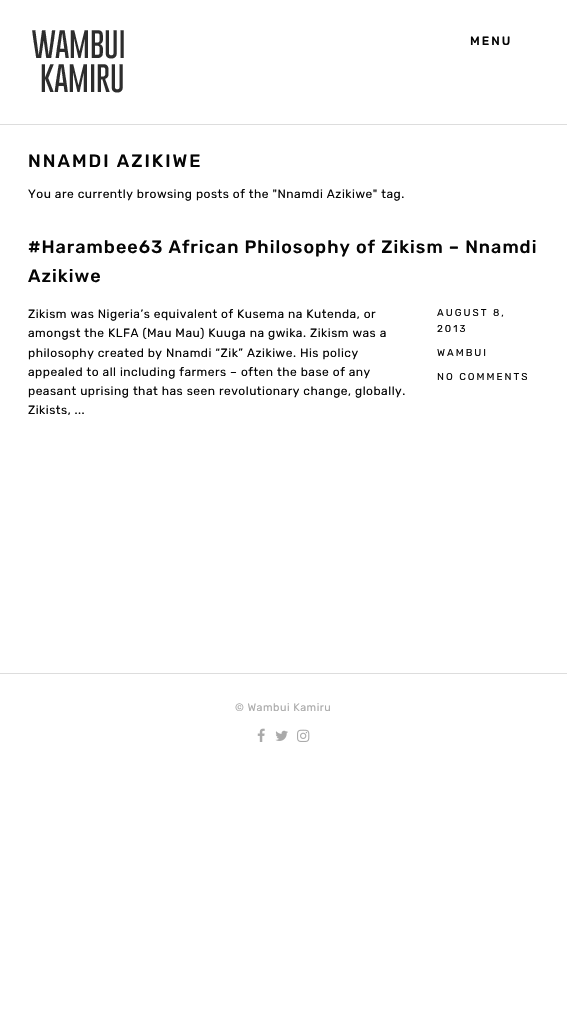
#include "include/core/SkBlurTypes.h"
#include "include/core/SkCanvas.h"
#include "include/core/SkData.h"
#include "include/core/SkFont.h"
#include "include/core/SkFontMgr.h"
#include "include/core/SkImage.h"
#include "include/core/SkMaskFilter.h"
#include "include/core/SkPaint.h"
#include "include/core/SkPathBuilder.h"
#include "include/core/SkTextBlob.h"
#include "include/effects/SkDashPathEffect.h"
#include "include/effects/SkGradientShader.h"
#include "include/utils/SkParsePath.h"

extern sk_sp<SkFontMgr> fontMgr;

void draw(SkCanvas* canvas) {
    SkPaint p;
    p.setAntiAlias(true);
    auto font = [&](const char* family, int weight, float size, bool italic = false) {
        SkFontStyle style(weight, SkFontStyle::kNormal_Width,
            italic ? SkFontStyle::kItalic_Slant : SkFontStyle::kUpright_Slant);
        SkFont result(fontMgr->matchFamilyStyle(family, style), size);
        result.setSubpixel(true);
        return result;
    };
    auto drawTracked = [&](const char* s, float x, float y, const SkFont& font, const SkPaint& ink, float letter, float word) {
        std::vector<SkGlyphID> glyphs(font.countText(s, strlen(s), SkTextEncoding::kUTF8));
        std::vector<float> xs(glyphs.size());
        font.textToGlyphs(s, strlen(s), SkTextEncoding::kUTF8, glyphs);
        font.getXPos(glyphs, xs, x);
        float extra = 0;
        for (size_t i = 0; i < glyphs.size(); i++) {
            xs[i] += extra;
            extra += letter + word * (glyphs[i] == font.unicharToGlyph(' '));
        }
        canvas->drawTextBlob(SkTextBlob::MakeFromPosHGlyphs(glyphs, xs, y, font), 0, 0, ink);
    };
    auto drawPhoto = [&](const char* path, float l, float t, float r, float b) {
        auto image = SkImages::DeferredFromEncodedData(SkData::MakeFromFileName(path));
        canvas->drawImageRect(image, SkRect::MakeLTRB(l, t, r, b), SkSamplingOptions());
    };
    canvas->clear(0xFFFFFFFF);
    p.setColor(0xFFDDDDDD);
    canvas->drawRect(SkRect::MakeLTRB(0, 124, 567, 125), p);
    drawPhoto("media/1.png", 32, 30, 124, 93);
    auto font1 = font("Rubik", 300, 12);
    p.setColor(0xFF050505);
    drawTracked("MENU", 470, 45, font1, p, 2, 0);
    auto font2 = font("Rubik", 300, 18);
    drawTracked("NNAMDI AZIKIWE", 28, 167, font2, p, 2, 0);
    auto font3 = font("Rubik", 400, 12);
    drawTracked("You are currently browsing posts of the \"Nnamdi Azikiwe\" tag.", 28, 198, font3, p, 0.5f, 0);
    drawTracked("#Harambee63 African Philosophy of Zikism – Nnamdi", 28, 253, font2, p, 1, 0);
    drawTracked("Azikiwe", 28, 282, font2, p, 1, 0);
    {
        const struct { const char* s; float x, y; } items[] = {
            {"Zikism was Nigeria’s equivalent of Kusema na Kutenda, or", 28, 318},
            {"amongst the KLFA (Mau Mau) Kuuga na gwika. Zikism was a", 28, 337},
            {"philosophy created by Nnamdi “Zik” Azikiwe. His policy", 28, 357},
            {"appealed to all including farmers – often the base of any", 28, 376},
            {"peasant uprising that has seen revolutionary change, globally.", 28, 395},
            {"Zikists, ...", 28, 414},
        };
        for (auto [s, x, y] : items) {
            drawTracked(s, x, y, font3, p, 0.5f, 0);
        }
    }
    auto font4 = font("Rubik", 400, 10);
    {
        const struct { const char* s; float x, y; } items[] = {
            {"AUGUST 8,", 437, 316},
            {"2013", 437, 332},
            {"WAMBUI", 437, 356},
            {"NO COMMENTS", 437, 380},
        };
        for (auto [s, x, y] : items) {
            drawTracked(s, x, y, font4, p, 2, 0);
        }
    }
    p.setColor(0xFFDDDDDD);
    canvas->drawRect(SkRect::MakeLTRB(0, 673, 567, 674), p);
    auto font5 = font("Rubik", 400, 10.75f);
    p.setColor(0xFFAAAAAA);
    drawTracked("© Wambui Kamiru", 235, 711, font5, p, 0.5f, 0);
    drawPhoto("media/2.png", 257, 728, 265, 742);
    drawPhoto("media/3.png", 275, 730, 288, 741);
    drawPhoto("media/4.png", 297, 729, 310, 742);
}
